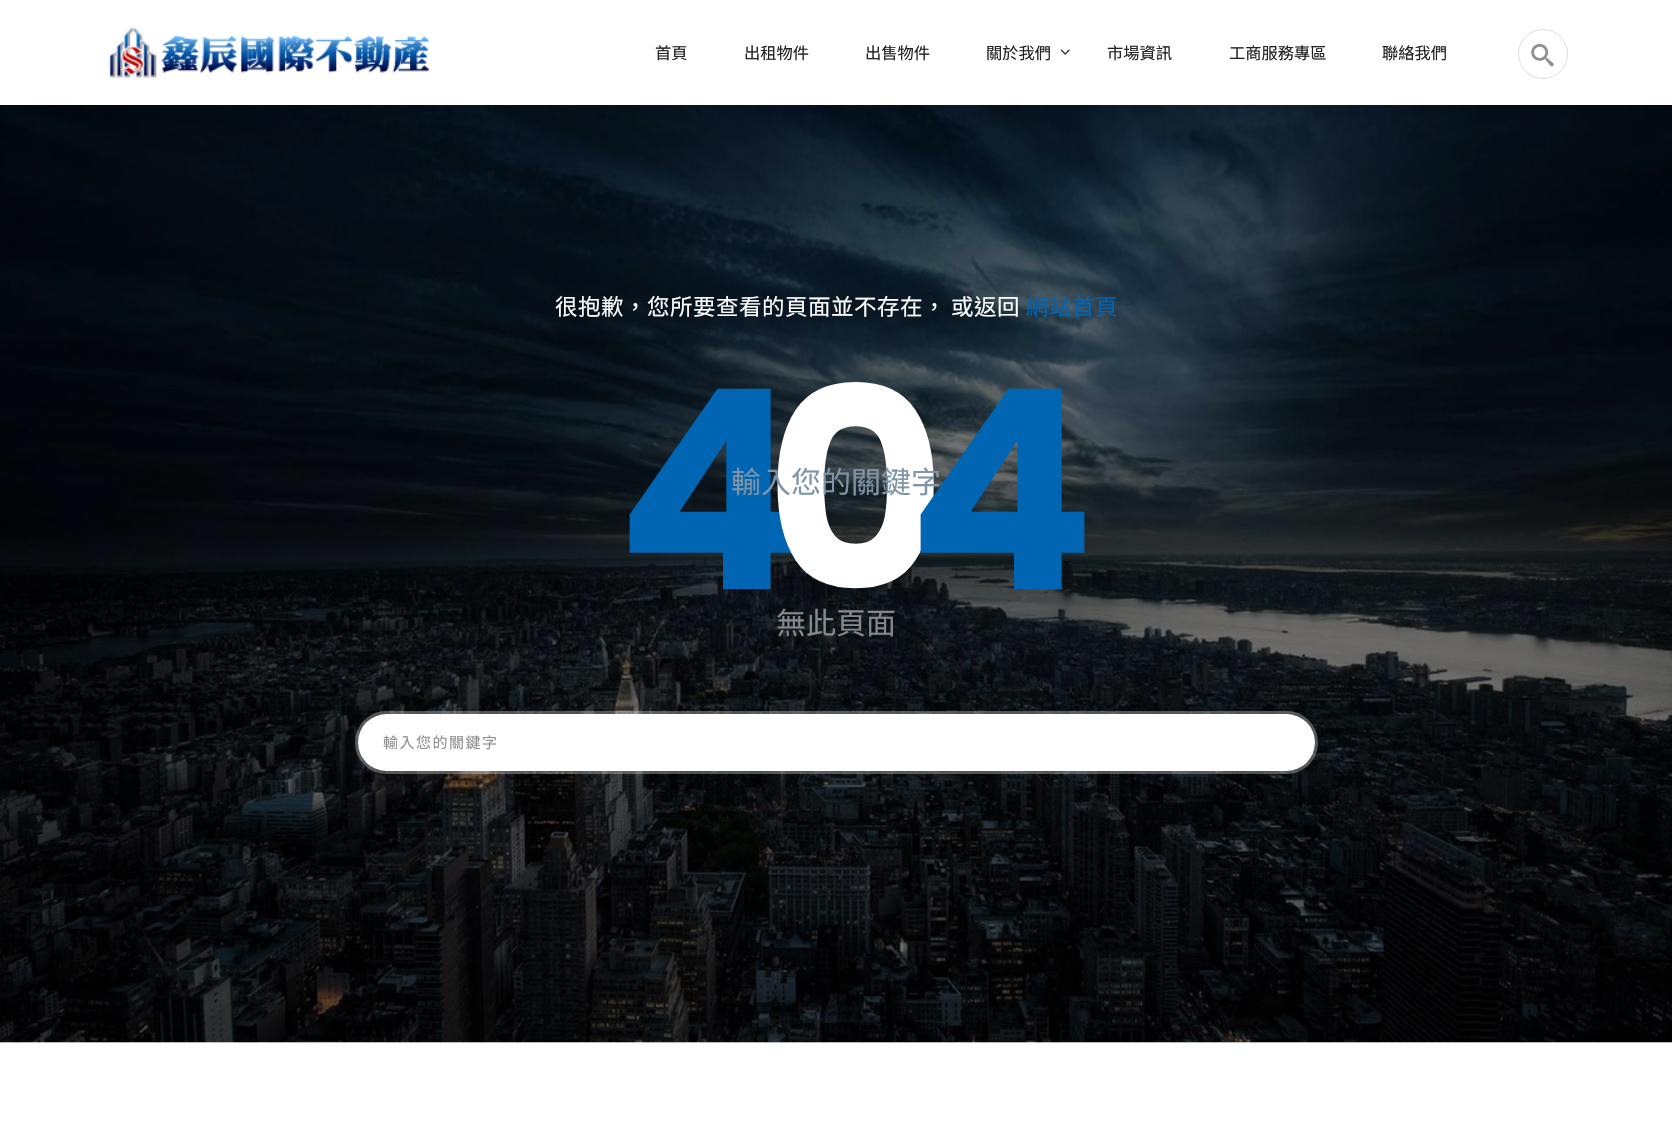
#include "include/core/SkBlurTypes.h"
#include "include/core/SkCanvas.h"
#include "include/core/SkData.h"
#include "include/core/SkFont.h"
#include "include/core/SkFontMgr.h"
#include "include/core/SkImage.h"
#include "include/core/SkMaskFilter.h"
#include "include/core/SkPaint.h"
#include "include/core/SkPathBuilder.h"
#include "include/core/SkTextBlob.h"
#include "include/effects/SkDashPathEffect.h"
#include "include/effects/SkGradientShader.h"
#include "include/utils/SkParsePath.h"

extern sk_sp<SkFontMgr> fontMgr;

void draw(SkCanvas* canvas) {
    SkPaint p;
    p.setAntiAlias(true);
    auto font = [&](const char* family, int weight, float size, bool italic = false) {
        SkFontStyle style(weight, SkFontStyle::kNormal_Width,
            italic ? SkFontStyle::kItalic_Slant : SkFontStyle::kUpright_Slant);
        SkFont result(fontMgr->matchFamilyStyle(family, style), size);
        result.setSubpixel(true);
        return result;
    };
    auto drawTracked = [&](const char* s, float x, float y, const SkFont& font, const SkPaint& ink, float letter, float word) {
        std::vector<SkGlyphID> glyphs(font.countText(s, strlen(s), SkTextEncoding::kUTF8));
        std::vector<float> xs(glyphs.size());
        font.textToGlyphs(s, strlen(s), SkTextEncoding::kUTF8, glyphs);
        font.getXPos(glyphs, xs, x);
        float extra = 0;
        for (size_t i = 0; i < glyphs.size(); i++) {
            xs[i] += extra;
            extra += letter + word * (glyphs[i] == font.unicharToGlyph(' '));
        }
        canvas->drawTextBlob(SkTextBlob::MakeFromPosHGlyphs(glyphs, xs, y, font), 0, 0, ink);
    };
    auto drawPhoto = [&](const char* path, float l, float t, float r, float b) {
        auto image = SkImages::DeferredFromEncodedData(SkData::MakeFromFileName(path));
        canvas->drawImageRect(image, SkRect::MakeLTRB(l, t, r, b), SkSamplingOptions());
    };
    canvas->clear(0xFFFFFFFF);
    drawPhoto("media/1.png", 109, 27, 429, 78);
    auto font1 = font("Noto Sans CJK TC", 400, 16.25f);
    p.setColor(0xFF222222);
    {
        const struct { const char* s; float x, y; } items[] = {
            {"首頁", 655, 59},
            {"出租物件", 744, 59},
            {"出售物件", 865, 59},
            {"關於我們", 986, 59},
        };
        for (auto [s, x, y] : items) {
            canvas->drawString(s, x, y, font1, p);
        }
    }
    drawPhoto("media/2.png", 1060, 49, 1070, 55);
    {
        const struct { const char* s; float x, y; } items[] = {
            {"市場資訊", 1107, 59},
            {"工商服務專區", 1229, 59},
            {"聯絡我們", 1382, 59},
        };
        for (auto [s, x, y] : items) {
            canvas->drawString(s, x, y, font1, p);
        }
    }
    p.setStyle(SkPaint::kStroke_Style);
    p.setStrokeWidth(1);
    p.setColor(0xFFDDDDDD);
    canvas->drawCircle(1543, 54, 24.5f, p);
    drawPhoto("media/3.png", 1531, 43, 1554, 67);
    drawPhoto("media/4.png", 0, 105, 1672, 1043);
    auto font2 = font("Noto Sans CJK TC", 400, 22.5f);
    p.setStyle(SkPaint::kFill_Style);
    p.setColor(0xFFFFFFFF);
    drawTracked("很抱歉，您所要查看的頁面並不存在，", 555, 315, font2, p, 0.5f, 0);
    drawTracked("或返回", 951, 315, font2, p, 0.5f, 0);
    p.setColor(0xFF0065B3);
    drawTracked("網站首頁", 1026, 315, font2, p, 0.5f, 0);
    auto font3 = font("Poppins", 700, 278);
    drawTracked("4", 616, 589, font3, p, -39, 0);
    p.setColor(0xFFFFFFFF);
    drawTracked("0", 765, 589, font3, p, -39, 0);
    p.setColor(0xFF0065B3);
    drawTracked("4", 907, 589, font3, p, -39, 0);
    auto font4 = font("Noto Sans CJK TC", 400, 30);
    p.setColor(0xFF86898C);
    canvas->drawString("無此頁面", 776, 634, font4, p);
    p.setColor(0xFFFFFFFF);
    canvas->drawRoundRect(SkRect::MakeLTRB(358, 714, 1315, 771), 28.5f, 28.5f, p);
    p.setStyle(SkPaint::kStroke_Style);
    p.setStrokeWidth(3);
    p.setColor(0x4DFFFFFF);
    canvas->drawRoundRect(SkRect::MakeLTRB(356.5f, 712.5f, 1316.5f, 772.5f), 30, 30, p);
    auto font5 = font("Noto Sans CJK TC", 400, 15);
    p.setStyle(SkPaint::kFill_Style);
    p.setColor(0xFF8F8F8F);
    drawTracked("輸入您的關鍵字", 383, 748, font5, p, 1.5f, 0);
    p.setColor(0xFF7F95A6);
    canvas->drawString("輸入您的關鍵字", 731, 493, font4, p);
}
